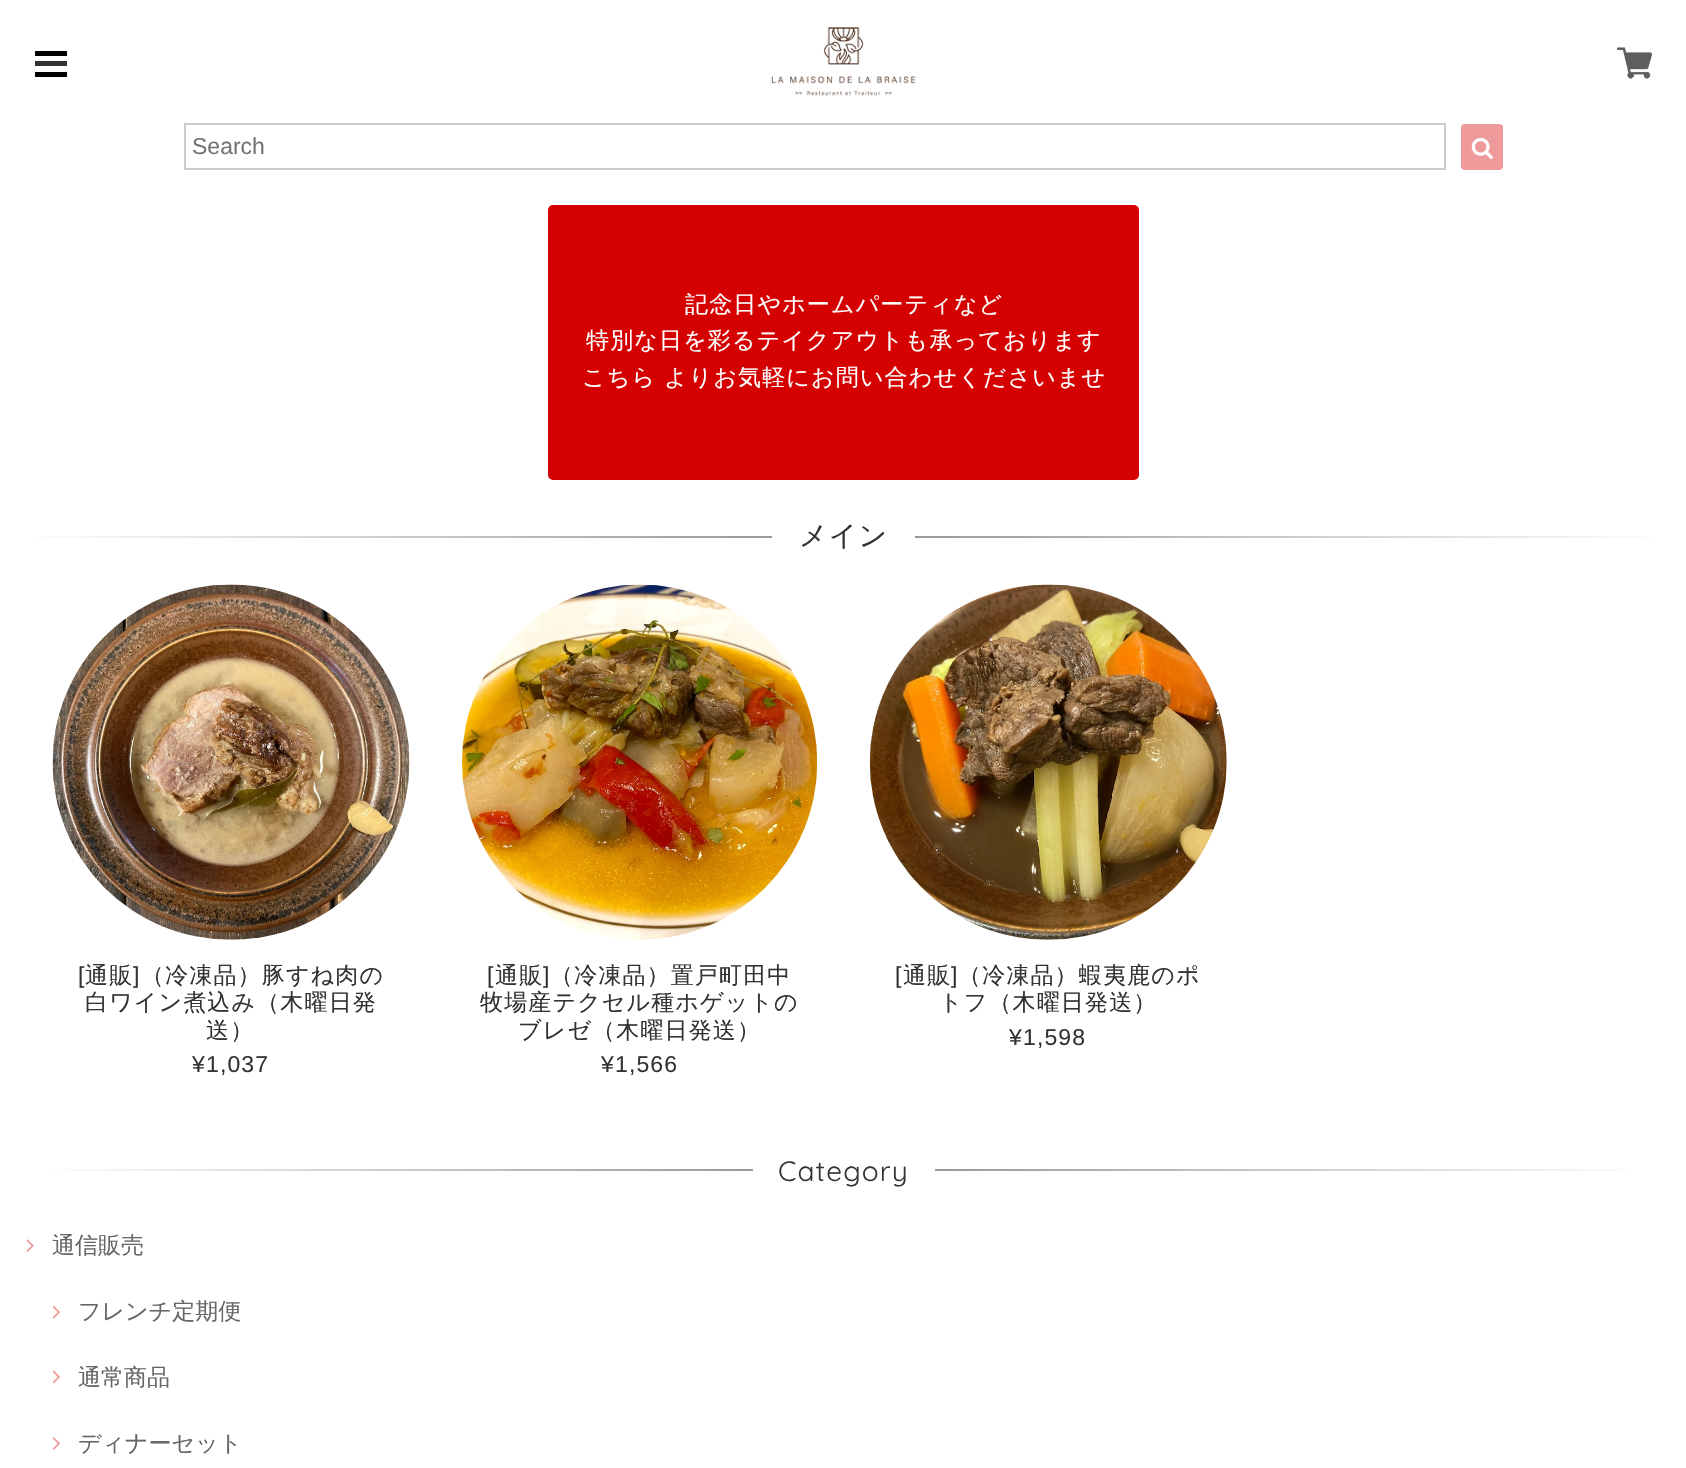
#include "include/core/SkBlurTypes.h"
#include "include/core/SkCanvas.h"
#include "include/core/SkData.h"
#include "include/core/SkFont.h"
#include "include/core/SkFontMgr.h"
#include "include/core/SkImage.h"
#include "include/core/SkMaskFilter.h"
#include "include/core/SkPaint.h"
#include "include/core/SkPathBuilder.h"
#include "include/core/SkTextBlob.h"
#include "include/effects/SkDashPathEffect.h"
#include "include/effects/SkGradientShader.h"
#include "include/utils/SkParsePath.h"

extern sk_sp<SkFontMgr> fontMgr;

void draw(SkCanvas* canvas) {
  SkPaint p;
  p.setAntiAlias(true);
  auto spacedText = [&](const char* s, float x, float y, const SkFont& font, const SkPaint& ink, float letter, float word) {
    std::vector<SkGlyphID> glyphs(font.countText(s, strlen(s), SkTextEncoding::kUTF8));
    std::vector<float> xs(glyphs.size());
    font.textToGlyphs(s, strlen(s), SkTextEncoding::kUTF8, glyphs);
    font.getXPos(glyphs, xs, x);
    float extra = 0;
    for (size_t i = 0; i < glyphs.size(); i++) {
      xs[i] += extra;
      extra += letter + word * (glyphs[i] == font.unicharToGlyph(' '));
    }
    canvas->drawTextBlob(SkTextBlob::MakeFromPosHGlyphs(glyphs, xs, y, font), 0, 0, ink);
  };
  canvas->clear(SK_ColorWHITE);
  p.setColor(SkColorSetRGB(51, 51, 51));
  canvas->drawRect(SkRect::MakeLTRB(35, 61, 67, 66), p);
  p.setColor(SK_ColorBLACK);
  canvas->drawRect(SkRect::MakeLTRB(35, 51, 67, 56), p);
  canvas->drawRect(SkRect::MakeLTRB(35, 72, 67, 77), p);
  canvas->drawImageRect(SkImages::DeferredFromEncodedData(SkData::MakeFromFileName("images/1.png")), SkRect::MakeLTRB(771, 27, 916, 96), SkSamplingOptions());
  canvas->drawImageRect(SkImages::DeferredFromEncodedData(SkData::MakeFromFileName("images/2.png")), SkRect::MakeLTRB(1617, 47, 1652, 79), SkSamplingOptions());
  p.setStyle(SkPaint::kStroke_Style);
  p.setStrokeWidth(2);
  p.setColor(SkColorSetRGB(204, 204, 204));
  canvas->drawRect(SkRect::MakeLTRB(185, 124, 1445, 169), p);
  p.setStyle(SkPaint::kFill_Style);
  p.setColor(SkColorSetRGB(239, 154, 154));
  canvas->drawRoundRect(SkRect::MakeLTRB(1461, 124, 1503, 170), 4, 4, p);
  canvas->drawImageRect(SkImages::DeferredFromEncodedData(SkData::MakeFromFileName("images/3.png")), SkRect::MakeLTRB(1471, 137, 1493, 159), SkSamplingOptions());
  p.setColor(SkColorSetRGB(213, 0, 0));
  canvas->drawRoundRect(SkRect::MakeLTRB(548, 205, 1139, 480), 5, 5, p);
  {
    const SkColor colors[] = {SkColorSetRGB(153, 153, 153), SK_ColorWHITE};
    const float stops[] = {0, 1};
    const SkPoint ends[] = {{772, 536}, {18, 536}};
    p.setShader(SkGradientShader::MakeLinear(ends, colors, stops, 2, SkTileMode::kClamp));
    p.setAlpha(255);
  }
  canvas->drawRect(SkRect::MakeLTRB(36, 536, 772, 538), p);
  {
    const SkColor colors[] = {SkColorSetRGB(153, 153, 153), SK_ColorWHITE};
    const float stops[] = {0, 1};
    const SkPoint ends[] = {{915, 536}, {1670, 536}};
    p.setShader(SkGradientShader::MakeLinear(ends, colors, stops, 2, SkTileMode::kClamp));
    p.setAlpha(255);
  }
  canvas->drawRect(SkRect::MakeLTRB(915, 536, 1652, 538), p);
  canvas->drawImageRect(SkImages::DeferredFromEncodedData(SkData::MakeFromFileName("images/4.png")), SkRect::MakeLTRB(52, 584, 410, 940), SkSamplingOptions());
  canvas->drawImageRect(SkImages::DeferredFromEncodedData(SkData::MakeFromFileName("images/5.png")), SkRect::MakeLTRB(462, 584, 818, 940), SkSamplingOptions());
  canvas->drawImageRect(SkImages::DeferredFromEncodedData(SkData::MakeFromFileName("images/6.png")), SkRect::MakeLTRB(869, 584, 1227, 940), SkSamplingOptions());
  {
    const SkColor colors[] = {SkColorSetRGB(153, 153, 153), SK_ColorWHITE};
    const float stops[] = {0, 1};
    const SkPoint ends[] = {{753, 1170}, {35, 1170}};
    p.setShader(SkGradientShader::MakeLinear(ends, colors, stops, 2, SkTileMode::kClamp));
    p.setAlpha(255);
  }
  canvas->drawRect(SkRect::MakeLTRB(53, 1169, 753, 1171), p);
  {
    const SkColor colors[] = {SkColorSetRGB(153, 153, 153), SK_ColorWHITE};
    const float stops[] = {0, 1};
    const SkPoint ends[] = {{935, 1170}, {1652, 1170}};
    p.setShader(SkGradientShader::MakeLinear(ends, colors, stops, 2, SkTileMode::kClamp));
    p.setAlpha(255);
  }
  canvas->drawRect(SkRect::MakeLTRB(935, 1169, 1634, 1171), p);
  canvas->drawImageRect(SkImages::DeferredFromEncodedData(SkData::MakeFromFileName("images/7.png")), SkRect::MakeLTRB(26, 1239, 34, 1252), SkSamplingOptions());
  canvas->drawImageRect(SkImages::DeferredFromEncodedData(SkData::MakeFromFileName("images/8.png")), SkRect::MakeLTRB(52, 1305, 60, 1319), SkSamplingOptions());
  canvas->drawImageRect(SkImages::DeferredFromEncodedData(SkData::MakeFromFileName("images/9.png")), SkRect::MakeLTRB(52, 1370, 60, 1384), SkSamplingOptions());
  canvas->drawImageRect(SkImages::DeferredFromEncodedData(SkData::MakeFromFileName("images/10.png")), SkRect::MakeLTRB(52, 1437, 60, 1450), SkSamplingOptions());
  SkFont font1(fontMgr->matchFamilyStyle("Liberation Sans", SkFontStyle::Normal()), 23);
  font1.setSubpixel(true);
  p.setShader(nullptr);
  p.setColor(SkColorSetRGB(117, 117, 117));
  canvas->drawString("Search", 192, 154, font1, p);
  SkFont font2(fontMgr->matchFamilyStyle("WenQuanYi Zen Hei", SkFontStyle(500, SkFontStyle::kNormal_Width, SkFontStyle::kUpright_Slant)), 23);
  font2.setSubpixel(true);
  p.setColor(SK_ColorWHITE);
  spacedText("記念日やホームパーティなど", 685, 312, font2, p, 1.15f, 0);
  spacedText("特別な日を彩るテイクアウトも承っております", 586, 348, font2, p, 1.15f, 0);
  spacedText("こちら", 582, 385, font2, p, 1.15f, 0);
  spacedText("よりお気軽にお問い合わせくださいませ", 664, 385, font2, p, 1.15f, 0);
  SkFont font3(fontMgr->matchFamilyStyle("WenQuanYi Zen Hei", SkFontStyle(500, SkFontStyle::kNormal_Width, SkFontStyle::kUpright_Slant)), 28);
  font3.setSubpixel(true);
  p.setColor(SkColorSetRGB(51, 51, 51));
  spacedText("メイン", 799, 545, font3, p, 1.15f, 0);
  spacedText("[", 78, 983, font1, p, 1.15f, 0);
  spacedText("通販", 85, 983, font2, p, 1.15f, 0);
  spacedText("]", 133, 983, font1, p, 1.15f, 0);
  spacedText("（冷凍品）豚すね肉の", 141, 983, font2, p, 1.15f, 0);
  spacedText("白ワイン煮込み（木曜日発", 85, 1010, font2, p, 1.15f, 0);
  spacedText("送）", 206, 1038, font2, p, 1.15f, 0);
  spacedText("¥1,037", 192, 1072, font1, p, 1.15f, 0);
  spacedText("[", 487, 983, font1, p, 1.15f, 0);
  spacedText("通販", 495, 983, font2, p, 1.15f, 0);
  spacedText("]", 543, 983, font1, p, 1.15f, 0);
  spacedText("（冷凍品）置戸町田中", 550, 983, font2, p, 1.15f, 0);
  spacedText("牧場産テクセル種ホゲットの", 480, 1010, font2, p, 1.15f, 0);
  spacedText("ブレゼ（木曜日発送）", 518, 1038, font2, p, 1.15f, 0);
  spacedText("¥1,566", 601, 1072, font1, p, 1.15f, 0);
  spacedText("[", 895, 983, font1, p, 1.15f, 0);
  spacedText("通販", 903, 983, font2, p, 1.15f, 0);
  spacedText("]", 951, 983, font1, p, 1.15f, 0);
  spacedText("（冷凍品）蝦夷鹿のポ", 958, 983, font2, p, 1.15f, 0);
  spacedText("トフ（木曜日発送）", 939, 1010, font2, p, 1.15f, 0);
  spacedText("¥1,598", 1009, 1045, font1, p, 1.15f, 0);
  SkFont font4(fontMgr->matchFamilyStyle("Quicksand", SkFontStyle(300, SkFontStyle::kNormal_Width, SkFontStyle::kUpright_Slant)), 28);
  font4.setSubpixel(true);
  spacedText("Category", 778, 1181, font4, p, 1.15f, 0);
  p.setColor(SkColorSetRGB(102, 102, 102));
  canvas->drawString("通信販売", 52, 1253, font2, p);
  canvas->drawString("フレンチ定期便", 78, 1319, font2, p);
  canvas->drawString("通常商品", 78, 1385, font2, p);
  canvas->drawString("ディナーセット", 78, 1451, font2, p);
}
